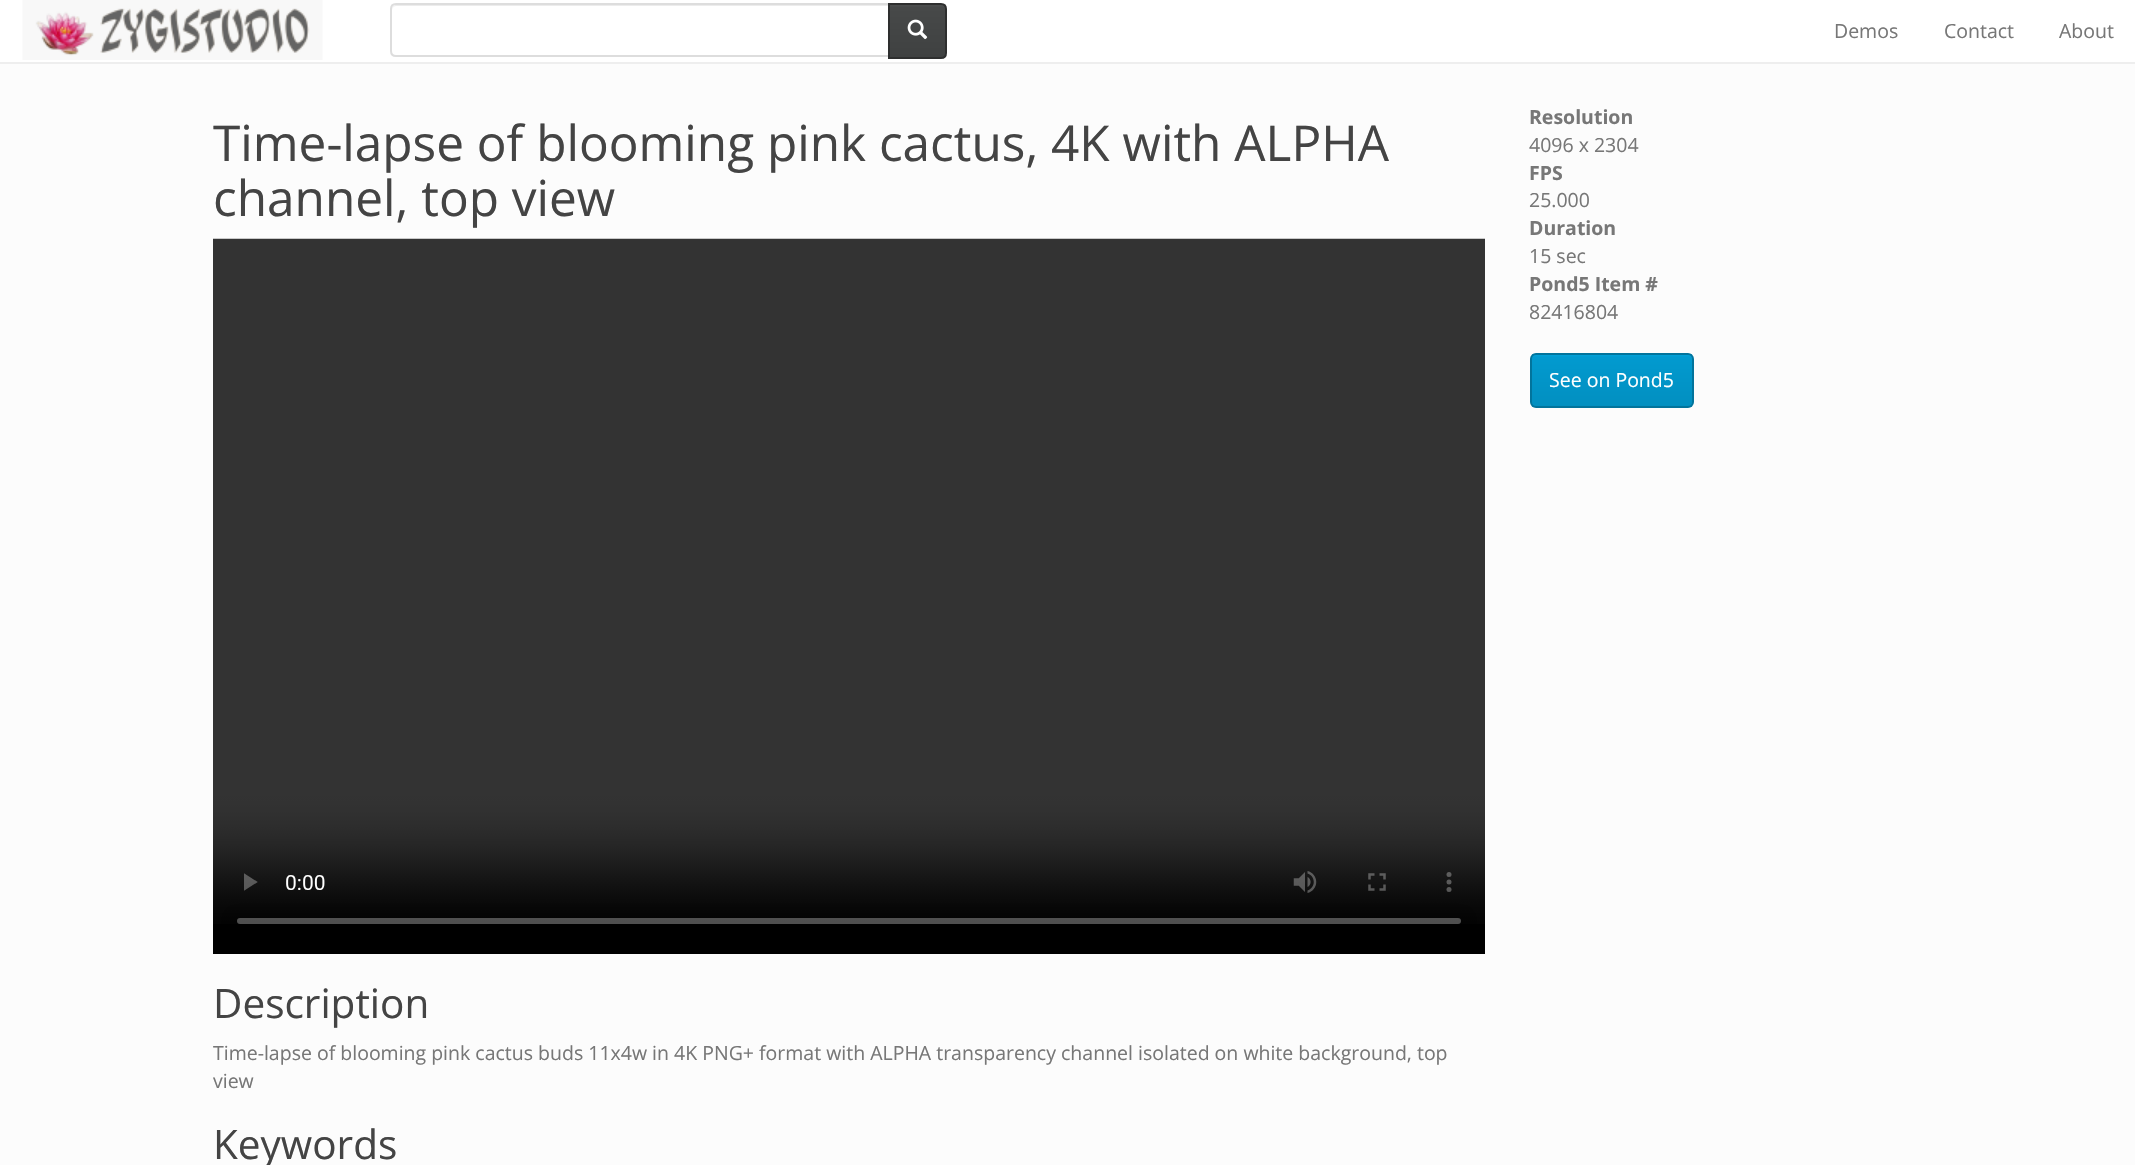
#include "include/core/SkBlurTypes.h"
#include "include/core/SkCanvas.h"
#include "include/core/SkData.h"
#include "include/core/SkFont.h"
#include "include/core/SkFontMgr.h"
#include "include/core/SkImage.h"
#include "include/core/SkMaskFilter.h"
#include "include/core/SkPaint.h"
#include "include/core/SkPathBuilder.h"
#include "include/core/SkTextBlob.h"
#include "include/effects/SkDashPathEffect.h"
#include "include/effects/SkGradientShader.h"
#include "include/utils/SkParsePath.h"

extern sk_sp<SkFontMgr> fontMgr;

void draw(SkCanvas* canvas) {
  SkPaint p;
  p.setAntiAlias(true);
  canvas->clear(SkColorSetRGB(252, 252, 252));
  p.setColor(SK_ColorWHITE);
  canvas->drawRect(SkRect::MakeLTRB(0, 0, 2135, 62), p);
  p.setColor(SkColorSetRGB(238, 238, 238));
  canvas->drawRect(SkRect::MakeLTRB(0, 62, 2135, 64), p);
  canvas->drawImageRect(SkImages::DeferredFromEncodedData(SkData::MakeFromFileName("images/1.png")), SkRect::MakeLTRB(22, 0, 323, 60), SkSamplingOptions());
  p.setColor(SkColorSetRGB(236, 236, 236));
  canvas->drawPath(SkPathBuilder().moveTo(396, 6).lineTo(888, 6).lineTo(888, 5).lineTo(397, 5).cubicTo(394, 5, 392, 7, 392, 10).cubicTo(392, 8, 394, 6, 396, 6).close().detach(), p);
  p.setStyle(SkPaint::kStroke_Style);
  p.setStrokeWidth(2);
  p.setColor(SkColorSetRGB(221, 221, 221));
  canvas->drawPath(SkPathBuilder().moveTo(396, 4).lineTo(889, 4).lineTo(889, 56).lineTo(396, 56).cubicTo(393, 56, 391, 54, 391, 51).lineTo(391, 9).cubicTo(391, 6, 393, 4, 396, 4).close().detach(), p);
  p.setStyle(SkPaint::kFill_Style);
  {
    const SkColor colors[] = {SkColorSetRGB(79, 81, 81), SkColorSetRGB(71, 73, 73), SkColorSetRGB(63, 65, 65)};
    const float stops[] = {0, 0.06f, 1};
    const SkPoint ends[] = {{917, 4.5f}, {917, 57}};
    p.setShader(SkGradientShader::MakeLinear(ends, colors, stops, 3, SkTileMode::kClamp));
    p.setAlpha(255);
  }
  canvas->drawRect(SkRect::MakeLTRB(890, 5, 945, 57), p);
  p.setStyle(SkPaint::kStroke_Style);
  p.setShader(nullptr);
  p.setColor(SkColorSetRGB(46, 47, 47));
  canvas->drawPath(SkPathBuilder().moveTo(889, 4).lineTo(941, 4).cubicTo(944, 4, 946, 6, 946, 9).lineTo(946, 53).cubicTo(946, 56, 944, 58, 941, 58).lineTo(889, 58).close().detach(), p);
  canvas->drawImageRect(SkImages::DeferredFromEncodedData(SkData::MakeFromFileName("images/2.png")), SkRect::MakeLTRB(907, 19, 928, 40), SkSamplingOptions());
  p.setStyle(SkPaint::kFill_Style);
  p.setColor(SK_ColorBLACK);
  canvas->drawRect(SkRect::MakeLTRB(213, 924, 1485, 954), p);
  canvas->drawImageRect(SkImages::DeferredFromEncodedData(SkData::MakeFromFileName("images/3.png")), SkRect::MakeLTRB(213, 238, 1485, 924), SkSamplingOptions());
  canvas->save();
  canvas->clipPath(SkPathBuilder().moveTo(1536, 353).lineTo(1688, 353).cubicTo(1691.5f, 353, 1694, 355.5f, 1694, 359).lineTo(1694, 402).cubicTo(1694, 405.5f, 1691.5f, 408, 1688, 408).lineTo(1536, 408).cubicTo(1532.5f, 408, 1530, 405.5f, 1530, 402).lineTo(1530, 359).cubicTo(1530, 355.5f, 1532.5f, 353, 1536, 353).close().detach(), true);
  {
    const SkColor colors[] = {SkColorSetRGB(2, 165, 222), SkColorSetRGB(2, 154, 207), SkColorSetRGB(2, 143, 192)};
    const float stops[] = {0, 0.06f, 1};
    const SkPoint ends[] = {{1612, 354}, {1612, 407}};
    p.setShader(SkGradientShader::MakeLinear(ends, colors, stops, 3, SkTileMode::kClamp));
    p.setAlpha(255);
  }
  canvas->drawRect(SkRect::MakeLTRB(1532, 354, 1692, 407), p);
  canvas->restore();
  p.setStyle(SkPaint::kStroke_Style);
  p.setShader(nullptr);
  p.setColor(SkColorSetRGB(2, 116, 156));
  canvas->drawRoundRect(SkRect::MakeLTRB(1531, 354, 1693, 407), 5, 5, p);
  SkFont font1(fontMgr->matchFamilyStyle("Open Sans", SkFontStyle::Normal()), 19.5f);
  font1.setSubpixel(true);
  p.setStyle(SkPaint::kFill_Style);
  p.setColor(SkColorSetRGB(119, 119, 119));
  canvas->drawString("Demos", 1834, 38, font1, p);
  canvas->drawString("Contact", 1944, 38, font1, p);
  canvas->drawString("About", 2059, 38, font1, p);
  SkFont font2(fontMgr->matchFamilyStyle("Open Sans", SkFontStyle::Normal()), 49.5f);
  font2.setSubpixel(true);
  p.setColor(SkColorSetRGB(68, 68, 68));
  canvas->drawString("Time-lapse of blooming pink cactus, 4K with ALPHA", 213, 161, font2, p);
  canvas->drawString("channel, top view", 213, 216, font2, p);
  SkFont font3(fontMgr->matchFamilyStyle("Open Sans", SkFontStyle::Normal()), 40.5f);
  font3.setSubpixel(true);
  canvas->drawString("Description", 213, 1018, font3, p);
  p.setColor(SkColorSetRGB(119, 119, 119));
  canvas->drawString("Time-lapse of blooming pink cactus buds 11x4w in 4K PNG+ format with ALPHA transparency channel isolated on white background, top", 213, 1060, font1, p);
  canvas->drawString("view", 213, 1088, font1, p);
  p.setColor(SkColorSetRGB(68, 68, 68));
  canvas->drawString("Keywords", 213, 1159, font3, p);
  SkFont font4(fontMgr->matchFamilyStyle("Open Sans", SkFontStyle::Bold()), 19.5f);
  font4.setSubpixel(true);
  p.setColor(SkColorSetRGB(119, 119, 119));
  canvas->drawString("Resolution", 1529, 124, font4, p);
  canvas->drawString("4096 x 2304", 1529, 152, font1, p);
  canvas->drawString("FPS", 1529, 180, font4, p);
  canvas->drawString("25.000", 1529, 207, font1, p);
  canvas->drawString("Duration", 1529, 235, font4, p);
  canvas->drawString("15 sec", 1529, 263, font1, p);
  canvas->drawString("Pond5 Item #", 1529, 291, font4, p);
  canvas->drawString("82416804", 1529, 319, font1, p);
  p.setColor(SK_ColorWHITE);
  canvas->drawString("See on Pond5", 1549, 387, font1, p);
}
